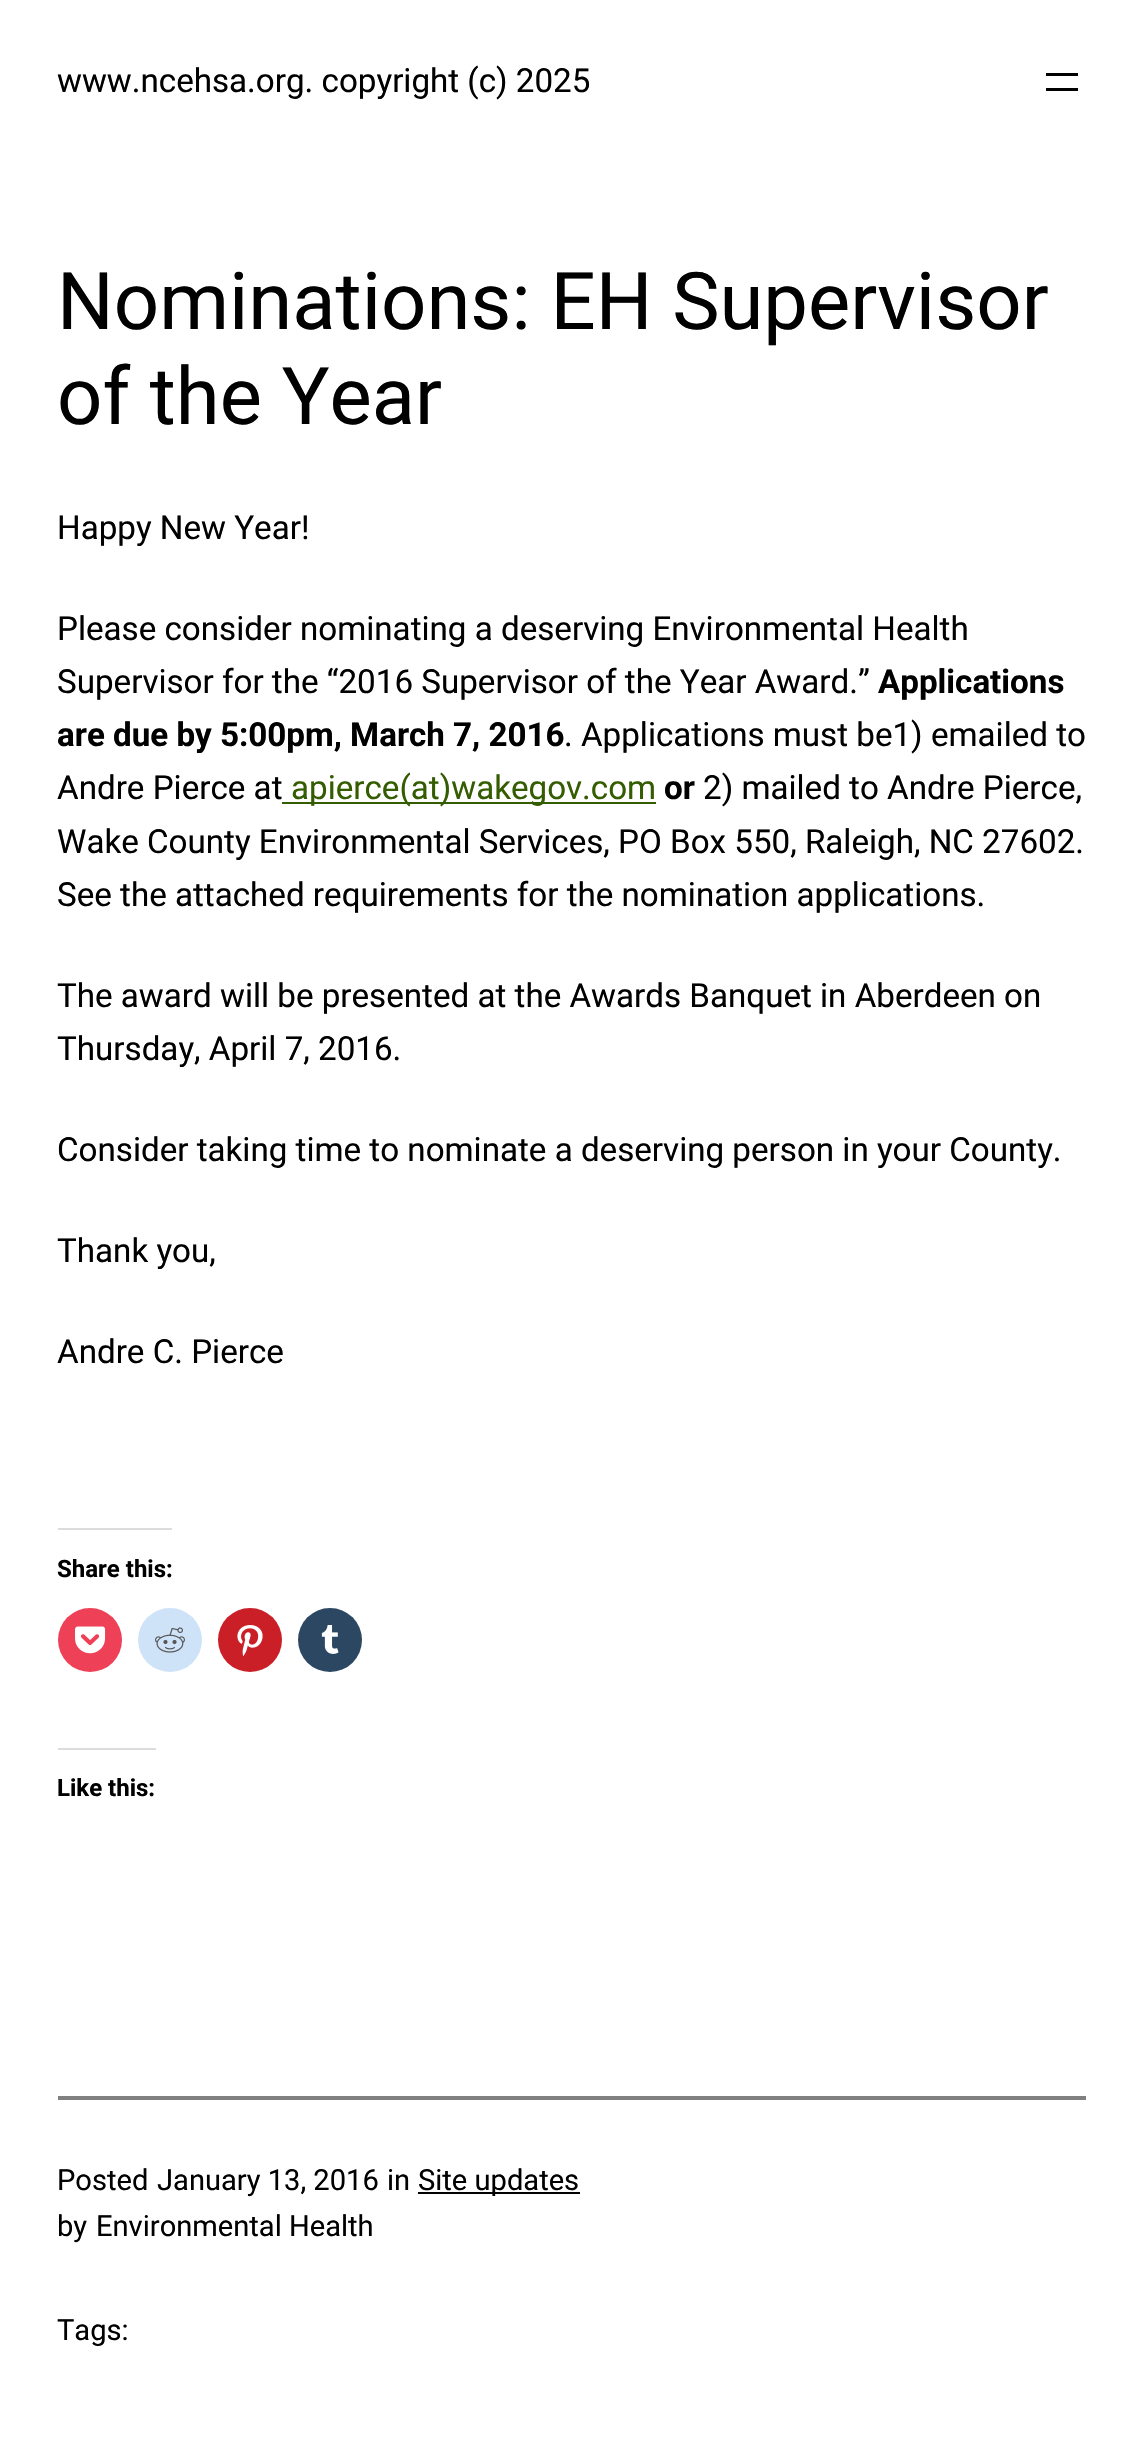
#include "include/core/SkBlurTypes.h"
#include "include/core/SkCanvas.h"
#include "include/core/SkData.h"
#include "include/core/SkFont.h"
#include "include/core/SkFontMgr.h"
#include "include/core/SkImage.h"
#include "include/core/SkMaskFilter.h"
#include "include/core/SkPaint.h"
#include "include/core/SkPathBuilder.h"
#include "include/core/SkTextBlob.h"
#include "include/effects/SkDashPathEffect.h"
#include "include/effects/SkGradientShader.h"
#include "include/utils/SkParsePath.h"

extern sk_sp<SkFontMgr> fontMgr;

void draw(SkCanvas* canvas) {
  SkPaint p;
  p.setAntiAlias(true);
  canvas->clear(SK_ColorWHITE);
  p.setColor(SK_ColorBLACK);
  canvas->drawRect(SkRect::MakeLTRB(1046, 73, 1078, 76), p);
  canvas->drawRect(SkRect::MakeLTRB(1046, 88, 1078, 91), p);
  p.setColor(SkColorSetRGB(52, 92, 0));
  canvas->drawRect(SkRect::MakeLTRB(282, 802, 656, 804), p);
  p.setColor(SkColorSetRGB(220, 220, 222));
  canvas->drawRect(SkRect::MakeLTRB(58, 1528, 172, 1530), p);
  p.setColor(SkColorSetRGB(238, 64, 86));
  canvas->drawCircle(90, 1640, 32, p);
  canvas->drawImageRect(SkImages::DeferredFromEncodedData(SkData::MakeFromFileName("images/1.png")), SkRect::MakeLTRB(75, 1626, 106, 1654), SkSamplingOptions());
  p.setColor(SkColorSetRGB(206, 227, 248));
  canvas->drawCircle(170, 1640, 32, p);
  canvas->drawImageRect(SkImages::DeferredFromEncodedData(SkData::MakeFromFileName("images/2.png")), SkRect::MakeLTRB(155, 1627, 185, 1653), SkSamplingOptions());
  p.setColor(SkColorSetRGB(202, 31, 39));
  canvas->drawCircle(250, 1640, 32, p);
  canvas->drawImageRect(SkImages::DeferredFromEncodedData(SkData::MakeFromFileName("images/3.png")), SkRect::MakeLTRB(237, 1625, 263, 1657), SkSamplingOptions());
  p.setColor(SkColorSetRGB(44, 71, 98));
  canvas->drawCircle(330, 1640, 32, p);
  canvas->drawImageRect(SkImages::DeferredFromEncodedData(SkData::MakeFromFileName("images/4.png")), SkRect::MakeLTRB(321, 1625, 339, 1654), SkSamplingOptions());
  p.setColor(SkColorSetRGB(220, 220, 222));
  canvas->drawRect(SkRect::MakeLTRB(58, 1748, 156, 1750), p);
  p.setColor(SkColorSetRGB(128, 128, 128));
  canvas->drawRect(SkRect::MakeLTRB(58, 2096, 1086, 2100), p);
  p.setColor(SK_ColorBLACK);
  canvas->drawRect(SkRect::MakeLTRB(418, 2192, 580, 2194), p);
  SkFont font1(fontMgr->matchFamilyStyle("Roboto", SkFontStyle::Normal()), 33.15f);
  font1.setSubpixel(true);
  canvas->drawString("www.ncehsa.org. copyright (c) 2025", 57, 92, font1, p);
  SkFont font2(fontMgr->matchFamilyStyle("Roboto", SkFontStyle::Normal()), 79.6f);
  font2.setSubpixel(true);
  canvas->drawString("Nominations: EH Supervisor", 57, 329, font2, p);
  canvas->drawString("of the Year", 57, 424, font2, p);
  canvas->drawString("Happy New Year!", 57, 539, font1, p);
  canvas->drawString("Please consider nominating a deserving Environmental Health", 57, 640, font1, p);
  canvas->drawString("Supervisor for the “2016 Supervisor of the Year Award.”", 57, 693, font1, p);
  SkFont font3(fontMgr->matchFamilyStyle("Roboto", SkFontStyle::Bold()), 33.15f);
  font3.setSubpixel(true);
  canvas->drawString("Applications", 878, 693, font3, p);
  canvas->drawString("are due by 5:00pm, March 7, 2016", 57, 746, font3, p);
  canvas->drawString(". Applications must be1) emailed to", 564, 746, font1, p);
  canvas->drawString("Andre Pierce at", 57, 799, font1, p);
  p.setColor(SkColorSetRGB(52, 92, 0));
  canvas->drawString("apierce(at)wakegov.com", 291, 799, font1, p);
  p.setColor(SK_ColorBLACK);
  canvas->drawString("or", 664, 799, font3, p);
  canvas->drawString("2) mailed to Andre Pierce,", 703, 799, font1, p);
  canvas->drawString("Wake County Environmental Services, PO Box 550, Raleigh, NC 27602.", 57, 853, font1, p);
  canvas->drawString("See the attached requirements for the nomination applications.", 57, 906, font1, p);
  canvas->drawString("The award will be presented at the Awards Banquet in Aberdeen on", 57, 1007, font1, p);
  canvas->drawString("Thursday, April 7, 2016.", 57, 1060, font1, p);
  canvas->drawString("Consider taking time to nominate a deserving person in your County.", 57, 1161, font1, p);
  canvas->drawString("Thank you,", 57, 1262, font1, p);
  canvas->drawString("Andre C. Pierce", 57, 1363, font1, p);
  SkFont font4(fontMgr->matchFamilyStyle("Roboto", SkFontStyle::Bold()), 24);
  font4.setSubpixel(true);
  canvas->drawString("Share this:", 57, 1577, font4, p);
  canvas->drawString("Like this:", 57, 1796, font4, p);
  SkFont font5(fontMgr->matchFamilyStyle("Roboto", SkFontStyle::Normal()), 29.1f);
  font5.setSubpixel(true);
  canvas->drawString("Posted", 57, 2190, font5, p);
  canvas->drawString("January 13, 2016", 157, 2190, font5, p);
  canvas->drawString("in", 387, 2190, font5, p);
  canvas->drawString("Site updates", 418, 2190, font5, p);
  canvas->drawString("by", 57, 2236, font5, p);
  canvas->drawString("Environmental Health", 96, 2236, font5, p);
  canvas->drawString("Tags:", 57, 2340, font5, p);
}
